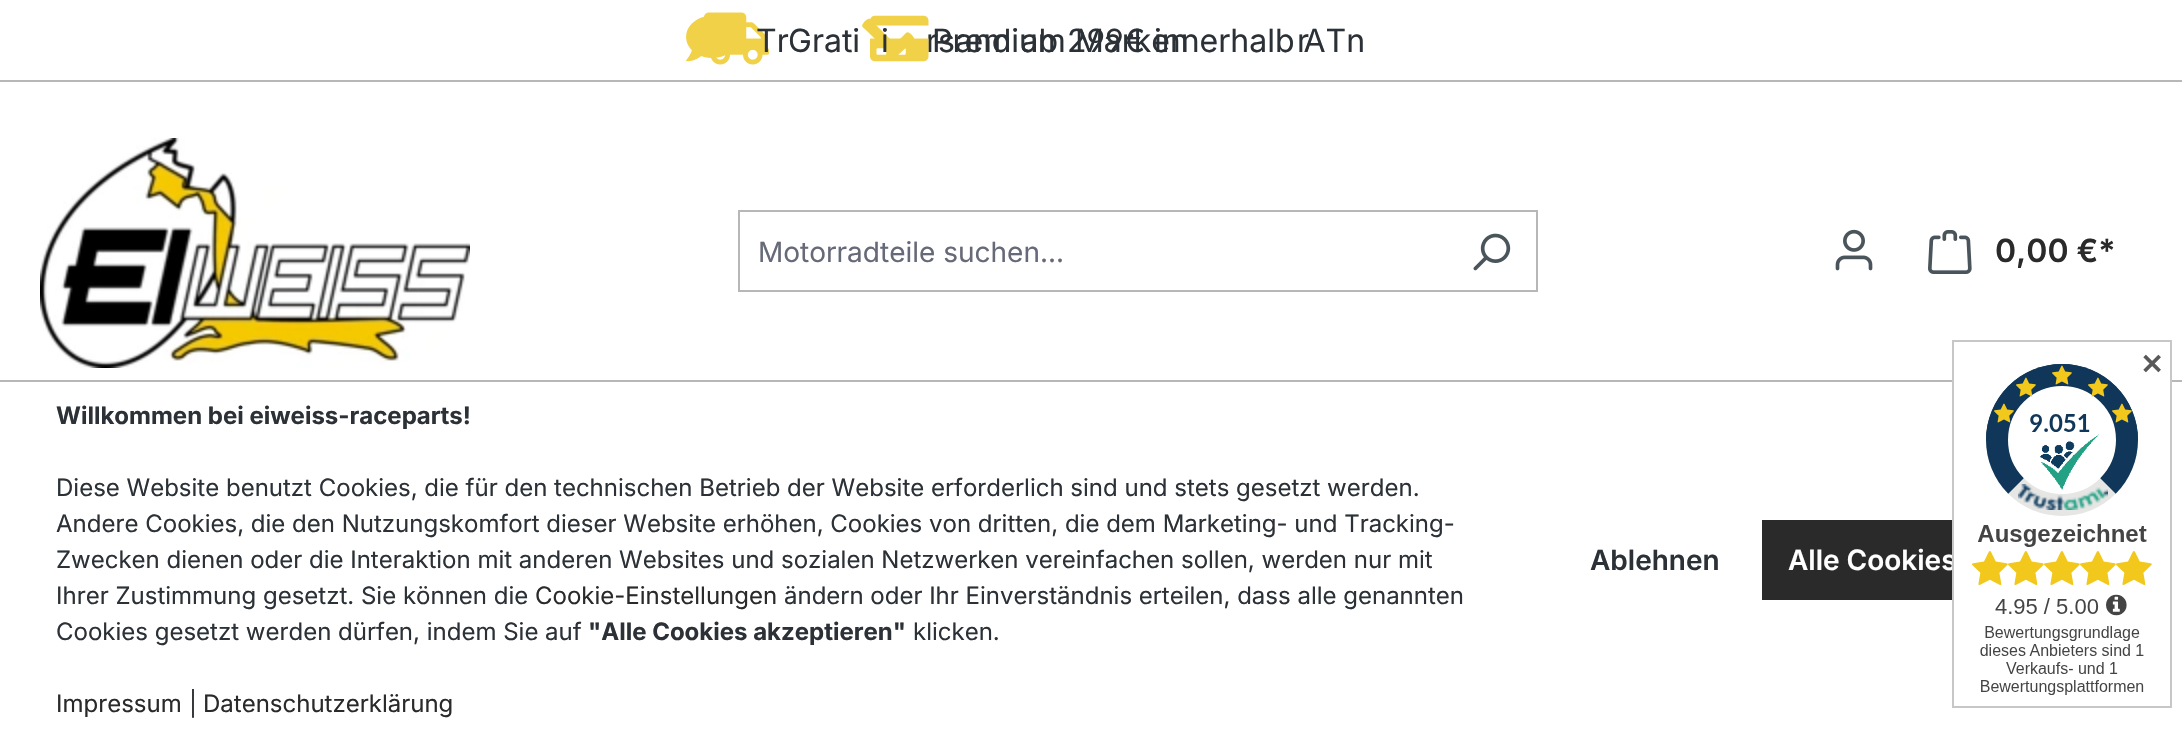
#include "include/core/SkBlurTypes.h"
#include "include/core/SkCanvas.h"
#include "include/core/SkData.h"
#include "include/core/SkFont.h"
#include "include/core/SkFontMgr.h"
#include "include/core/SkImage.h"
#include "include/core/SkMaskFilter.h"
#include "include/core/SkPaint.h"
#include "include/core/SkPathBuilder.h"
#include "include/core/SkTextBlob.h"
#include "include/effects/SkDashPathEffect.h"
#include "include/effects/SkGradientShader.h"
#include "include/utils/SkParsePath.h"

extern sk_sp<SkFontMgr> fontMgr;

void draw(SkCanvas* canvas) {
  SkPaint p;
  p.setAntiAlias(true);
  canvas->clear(SK_ColorWHITE);
  p.setColor(SkColorSetRGB(183, 183, 183));
  canvas->drawRect(SkRect::MakeLTRB(0, 80, 2182, 82), p);
  canvas->drawImageRect(SkImages::DeferredFromEncodedData(SkData::MakeFromFileName("images/3.png")), SkRect::MakeLTRB(704, 12, 769, 65), SkSamplingOptions());
  canvas->drawImageRect(SkImages::DeferredFromEncodedData(SkData::MakeFromFileName("images/2.png")), SkRect::MakeLTRB(686, 16, 726, 62), SkSamplingOptions());
  p.setColor(SkColorSetRGB(241, 209, 71));
  canvas->drawPath(SkPathBuilder().moveTo(896, 57).lineTo(914, 40).cubicTo(915, 38, 913, 37, 912, 35).cubicTo(908, 32, 908, 31, 904, 35).lineTo(895, 44).lineTo(870, 19).cubicTo(868, 18, 867, 20, 865, 21).cubicTo(860, 27, 862, 26, 868, 32).lineTo(888, 52).cubicTo(888, 53, 894, 60, 896, 57).close().detach(), p);
  canvas->drawImageRect(SkImages::DeferredFromEncodedData(SkData::MakeFromFileName("images/4.png")), SkRect::MakeLTRB(40, 138, 470, 368), SkSamplingOptions());
  p.setColor(SkColorSetRGB(183, 183, 183));
  canvas->drawRect(SkRect::MakeLTRB(738, 210, 1538, 212), p);
  canvas->drawRect(SkRect::MakeLTRB(738, 290, 1446, 292), p);
  canvas->drawRect(SkRect::MakeLTRB(738, 210, 740, 292), p);
  canvas->drawRect(SkRect::MakeLTRB(1536, 210, 1538, 292), p);
  canvas->drawRect(SkRect::MakeLTRB(1444, 290, 1538, 292), p);
  canvas->drawImageRect(SkImages::DeferredFromEncodedData(SkData::MakeFromFileName("images/5.png")), SkRect::MakeLTRB(1473, 233, 1511, 271), SkSamplingOptions());
  canvas->drawImageRect(SkImages::DeferredFromEncodedData(SkData::MakeFromFileName("images/6.png")), SkRect::MakeLTRB(1835, 229, 1873, 271), SkSamplingOptions());
  canvas->drawImageRect(SkImages::DeferredFromEncodedData(SkData::MakeFromFileName("images/7.png")), SkRect::MakeLTRB(1928, 230, 1972, 274), SkSamplingOptions());
  canvas->drawRect(SkRect::MakeLTRB(0, 380, 2182, 382), p);
  p.setColor(SkColorSetRGB(42, 42, 42));
  canvas->drawRect(SkRect::MakeLTRB(1762, 520, 1952, 600), p);
  SkFont font1(fontMgr->matchFamilyStyle("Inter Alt", SkFontStyle::Normal()), 32);
  font1.setSubpixel(true);
  p.setColor(SkColorSetRGB(43, 49, 54));
  canvas->drawString("Tr", 756, 52, font1, p);
  canvas->drawString("Grati", 788, 52, font1, p);
  canvas->drawString("rsand ab 299€ innerhalb ATn", 926, 52, font1, p);
  canvas->drawImageRect(SkImages::DeferredFromEncodedData(SkData::MakeFromFileName("images/1.png")), SkRect::MakeLTRB(870, 15, 929, 62), SkSamplingOptions());
  canvas->drawString("i", 881, 52, font1, p);
  canvas->drawString("r", 1297, 52, font1, p);
  SkFont font2(fontMgr->matchFamilyStyle("Inter", SkFontStyle::Normal()), 32);
  font2.setSubpixel(true);
  canvas->drawString("Premium Marken", 932, 52, font2, p);
  SkFont font3(fontMgr->matchFamilyStyle("Inter", SkFontStyle::Normal()), 28);
  font3.setSubpixel(true);
  p.setColor(SkColorSetRGB(102, 105, 119));
  canvas->drawString("Motorradteile suchen...", 758, 262, font3, p);
  SkFont font4(fontMgr->matchFamilyStyle("Inter", SkFontStyle(600, SkFontStyle::kNormal_Width, SkFontStyle::kUpright_Slant)), 32);
  font4.setSubpixel(true);
  p.setColor(SkColorSetRGB(42, 42, 42));
  canvas->drawString("0,00 €*", 1995, 262, font4, p);
  SkFont font5(fontMgr->matchFamilyStyle("Inter", SkFontStyle::Bold()), 24);
  font5.setSubpixel(true);
  p.setColor(SkColorSetRGB(43, 49, 54));
  canvas->drawString("Willkommen bei eiweiss-raceparts!", 56, 424, font5, p);
  SkFont font6(fontMgr->matchFamilyStyle("Inter", SkFontStyle::Normal()), 24);
  font6.setSubpixel(true);
  canvas->drawString("Diese Website benutzt Cookies, die für den technischen Betrieb der Website erforderlich sind und stets gesetzt werden.", 56, 496, font6, p);
  canvas->drawString("Andere Cookies, die den Nutzungskomfort dieser Website erhöhen, Cookies von dritten, die dem Marketing- und Tracking-", 56, 532, font6, p);
  canvas->drawString("Zwecken dienen oder die Interaktion mit anderen Websites und sozialen Netzwerken vereinfachen sollen, werden nur mit", 56, 568, font6, p);
  canvas->drawString("Ihrer Zustimmung gesetzt. Sie können die", 56, 604, font6, p);
  p.setColor(SkColorSetRGB(42, 42, 42));
  canvas->drawString("Cookie-Einstellungen", 535, 604, font6, p);
  p.setColor(SkColorSetRGB(43, 49, 54));
  canvas->drawString("ändern oder Ihr Einverständnis erteilen, dass alle genannten", 784, 604, font6, p);
  canvas->drawString("Cookies gesetzt werden dürfen, indem Sie auf", 56, 640, font6, p);
  canvas->drawString("\"Alle Cookies akzeptieren\"", 588, 640, font5, p);
  canvas->drawString("klicken.", 913, 640, font6, p);
  p.setColor(SkColorSetRGB(42, 42, 42));
  canvas->drawString("Impressum", 56, 712, font6, p);
  p.setColor(SkColorSetRGB(43, 49, 54));
  canvas->drawString("|", 189, 712, font6, p);
  p.setColor(SkColorSetRGB(42, 42, 42));
  canvas->drawString("Datenschutzerklärung", 203, 712, font6, p);
  SkFont font7(fontMgr->matchFamilyStyle("Inter", SkFontStyle(600, SkFontStyle::kNormal_Width, SkFontStyle::kUpright_Slant)), 28);
  font7.setSubpixel(true);
  p.setColor(SkColorSetRGB(43, 49, 54));
  canvas->drawString("Ablehnen", 1590, 570, font7, p);
  p.setColor(SK_ColorWHITE);
  canvas->drawString("Alle Cookies", 1788, 570, font7, p);
  canvas->drawImageRect(SkImages::DeferredFromEncodedData(SkData::MakeFromFileName("images/8.png")), SkRect::MakeLTRB(1952, 340, 2172, 708), SkSamplingOptions());
  SkFont font8(fontMgr->matchFamilyStyle("DejaVu Sans", SkFontStyle::Bold()), 28);
  font8.setSubpixel(true);
  p.setColor(SkColorSetRGB(89, 89, 89));
  canvas->drawString("✕", 2140, 374, font8, p);
}
